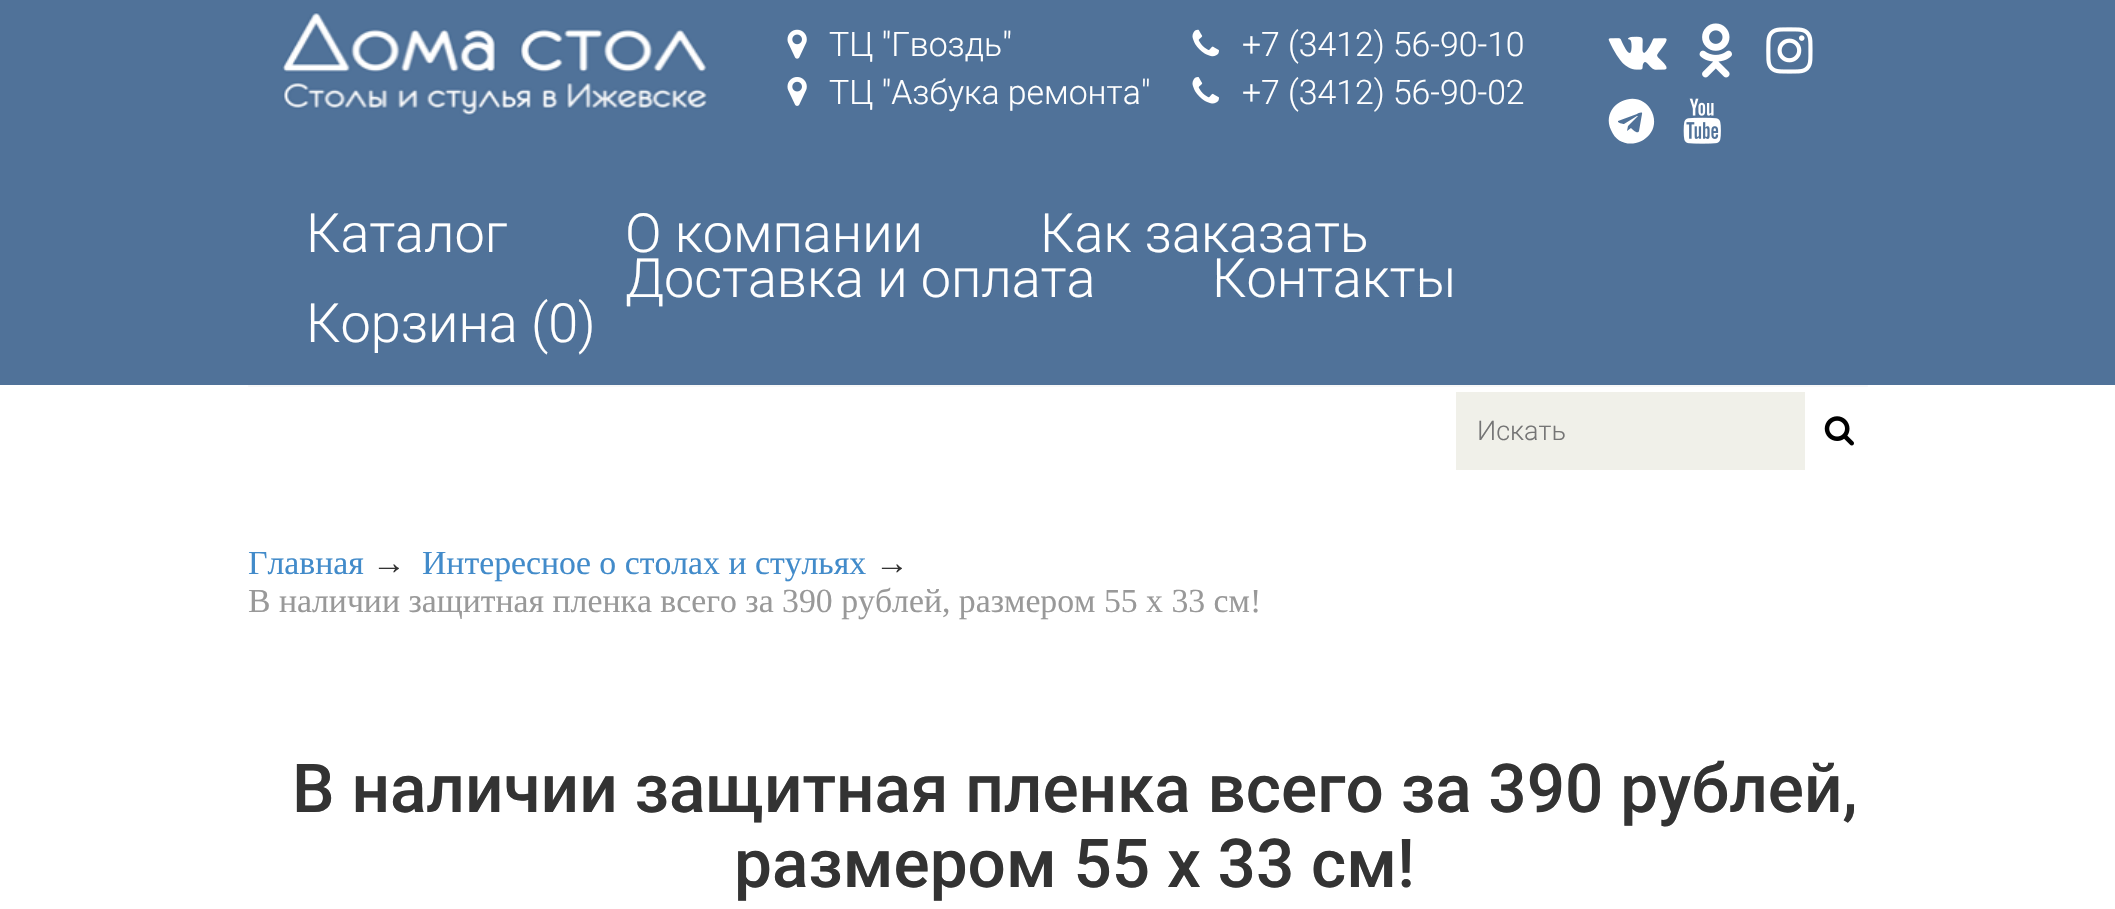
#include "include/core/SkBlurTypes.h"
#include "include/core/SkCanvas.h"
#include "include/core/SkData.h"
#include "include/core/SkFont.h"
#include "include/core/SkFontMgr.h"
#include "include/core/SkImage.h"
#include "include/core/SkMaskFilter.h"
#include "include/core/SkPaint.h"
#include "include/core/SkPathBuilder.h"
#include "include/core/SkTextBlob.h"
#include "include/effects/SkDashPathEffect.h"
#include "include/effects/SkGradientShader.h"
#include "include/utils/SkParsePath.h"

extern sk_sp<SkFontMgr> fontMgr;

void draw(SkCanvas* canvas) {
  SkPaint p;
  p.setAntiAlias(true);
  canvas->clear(SK_ColorWHITE);
  p.setColor(SkColorSetRGB(80, 114, 153));
  canvas->drawRect(SkRect::MakeLTRB(0, 0, 2115, 385), p);
  canvas->drawImageRect(SkImages::DeferredFromEncodedData(SkData::MakeFromFileName("images/1.png")), SkRect::MakeLTRB(281, 12, 708, 116), SkSamplingOptions());
  canvas->drawImageRect(SkImages::DeferredFromEncodedData(SkData::MakeFromFileName("images/2.png")), SkRect::MakeLTRB(787, 29, 807, 59), SkSamplingOptions());
  canvas->drawImageRect(SkImages::DeferredFromEncodedData(SkData::MakeFromFileName("images/3.png")), SkRect::MakeLTRB(787, 77, 807, 106), SkSamplingOptions());
  canvas->drawImageRect(SkImages::DeferredFromEncodedData(SkData::MakeFromFileName("images/4.png")), SkRect::MakeLTRB(1192, 29, 1219, 57), SkSamplingOptions());
  canvas->drawImageRect(SkImages::DeferredFromEncodedData(SkData::MakeFromFileName("images/5.png")), SkRect::MakeLTRB(1192, 77, 1219, 104), SkSamplingOptions());
  canvas->drawImageRect(SkImages::DeferredFromEncodedData(SkData::MakeFromFileName("images/6.png")), SkRect::MakeLTRB(1608, 36, 1667, 70), SkSamplingOptions());
  canvas->drawImageRect(SkImages::DeferredFromEncodedData(SkData::MakeFromFileName("images/7.png")), SkRect::MakeLTRB(1699, 23, 1732, 78), SkSamplingOptions());
  canvas->drawImageRect(SkImages::DeferredFromEncodedData(SkData::MakeFromFileName("images/8.png")), SkRect::MakeLTRB(1766, 27, 1813, 74), SkSamplingOptions());
  p.setColor(SK_ColorWHITE);
  canvas->drawPath(SkPathBuilder().moveTo(1639, 131).lineTo(1642, 114).cubicTo(1643, 111, 1638, 113, 1637, 114).lineTo(1618, 121).cubicTo(1617, 123, 1623, 124, 1624, 124).lineTo(1637, 116).cubicTo(1638, 116, 1638, 116, 1638, 116).lineTo(1628, 126).lineTo(1627, 131).lineTo(1631, 128).cubicTo(1632, 129, 1638, 135, 1639, 131).close().moveTo(1652, 112).cubicTo(1664, 140, 1622, 157, 1611, 130).cubicTo(1599, 103, 1640, 85, 1652, 112).close().detach(), p);
  canvas->drawImageRect(SkImages::DeferredFromEncodedData(SkData::MakeFromFileName("images/9.png")), SkRect::MakeLTRB(1683, 98, 1721, 144), SkSamplingOptions());
  p.setColor(SkColorSetRGB(248, 248, 248));
  canvas->drawRoundRect(SkRect::MakeLTRB(248, 385, 1868, 387), 1, 1, p);
  p.setColor(SkColorSetRGB(240, 240, 233));
  canvas->drawRect(SkRect::MakeLTRB(1456, 392, 1805, 470), p);
  canvas->drawImageRect(SkImages::DeferredFromEncodedData(SkData::MakeFromFileName("images/10.png")), SkRect::MakeLTRB(1824, 416, 1854, 446), SkSamplingOptions());
  SkFont font1(fontMgr->matchFamilyStyle("Roboto", SkFontStyle(300, SkFontStyle::kNormal_Width, SkFontStyle::kUpright_Slant)), 33.75f);
  font1.setSubpixel(true);
  p.setColor(SK_ColorWHITE);
  canvas->drawString("ТЦ \"Гвоздь\"", 829, 56, font1, p);
  canvas->drawString("ТЦ \"Азбука ремонта\"", 829, 104, font1, p);
  canvas->drawString("+7 (3412) 56-90-10", 1242, 56, font1, p);
  canvas->drawString("+7 (3412) 56-90-02", 1242, 104, font1, p);
  SkFont font2(fontMgr->matchFamilyStyle("Roboto", SkFontStyle(300, SkFontStyle::kNormal_Width, SkFontStyle::kUpright_Slant)), 54);
  font2.setSubpixel(true);
  canvas->drawString("Каталог", 306, 252, font2, p);
  canvas->drawString("О компании", 625, 252, font2, p);
  canvas->drawString("Как заказать", 1040, 252, font2, p);
  canvas->drawString("Доставка и оплата", 625, 297, font2, p);
  canvas->drawString("Контакты", 1212, 297, font2, p);
  canvas->drawString("Корзина (0)", 306, 342, font2, p);
  SkFont font3(fontMgr->matchFamilyStyle("Roboto", SkFontStyle(300, SkFontStyle::kNormal_Width, SkFontStyle::kUpright_Slant)), 27);
  font3.setSubpixel(true);
  p.setColor(SkColorSetRGB(117, 117, 117));
  canvas->drawString("Искать", 1477, 440, font3, p);
  SkFont font4(fontMgr->matchFamilyStyle("Liberation Serif", SkFontStyle::Normal()), 33.75f);
  font4.setSubpixel(true);
  p.setColor(SkColorSetRGB(66, 139, 202));
  canvas->drawString("Главная", 248, 574, font4, p);
  p.setColor(SkColorSetRGB(51, 51, 51));
  canvas->drawString("→", 372, 574, font4, p);
  p.setColor(SkColorSetRGB(66, 139, 202));
  canvas->drawString("Интересное о столах и стульях", 422, 574, font4, p);
  p.setColor(SkColorSetRGB(51, 51, 51));
  canvas->drawString("→", 875, 574, font4, p);
  p.setColor(SkColorSetRGB(153, 153, 153));
  canvas->drawString("В наличии защитная пленка всего за 390 рублей, размером 55 х 33 см!", 248, 612, font4, p);
  SkFont font5(fontMgr->matchFamilyStyle("Roboto", SkFontStyle(500, SkFontStyle::kNormal_Width, SkFontStyle::kUpright_Slant)), 67.5f);
  font5.setSubpixel(true);
  p.setColor(SkColorSetRGB(51, 51, 51));
  canvas->drawString("В наличии защитная пленка всего за 390 рублей,", 292, 812, font5, p);
  canvas->drawString("размером 55 х 33 см!", 734, 887, font5, p);
}
